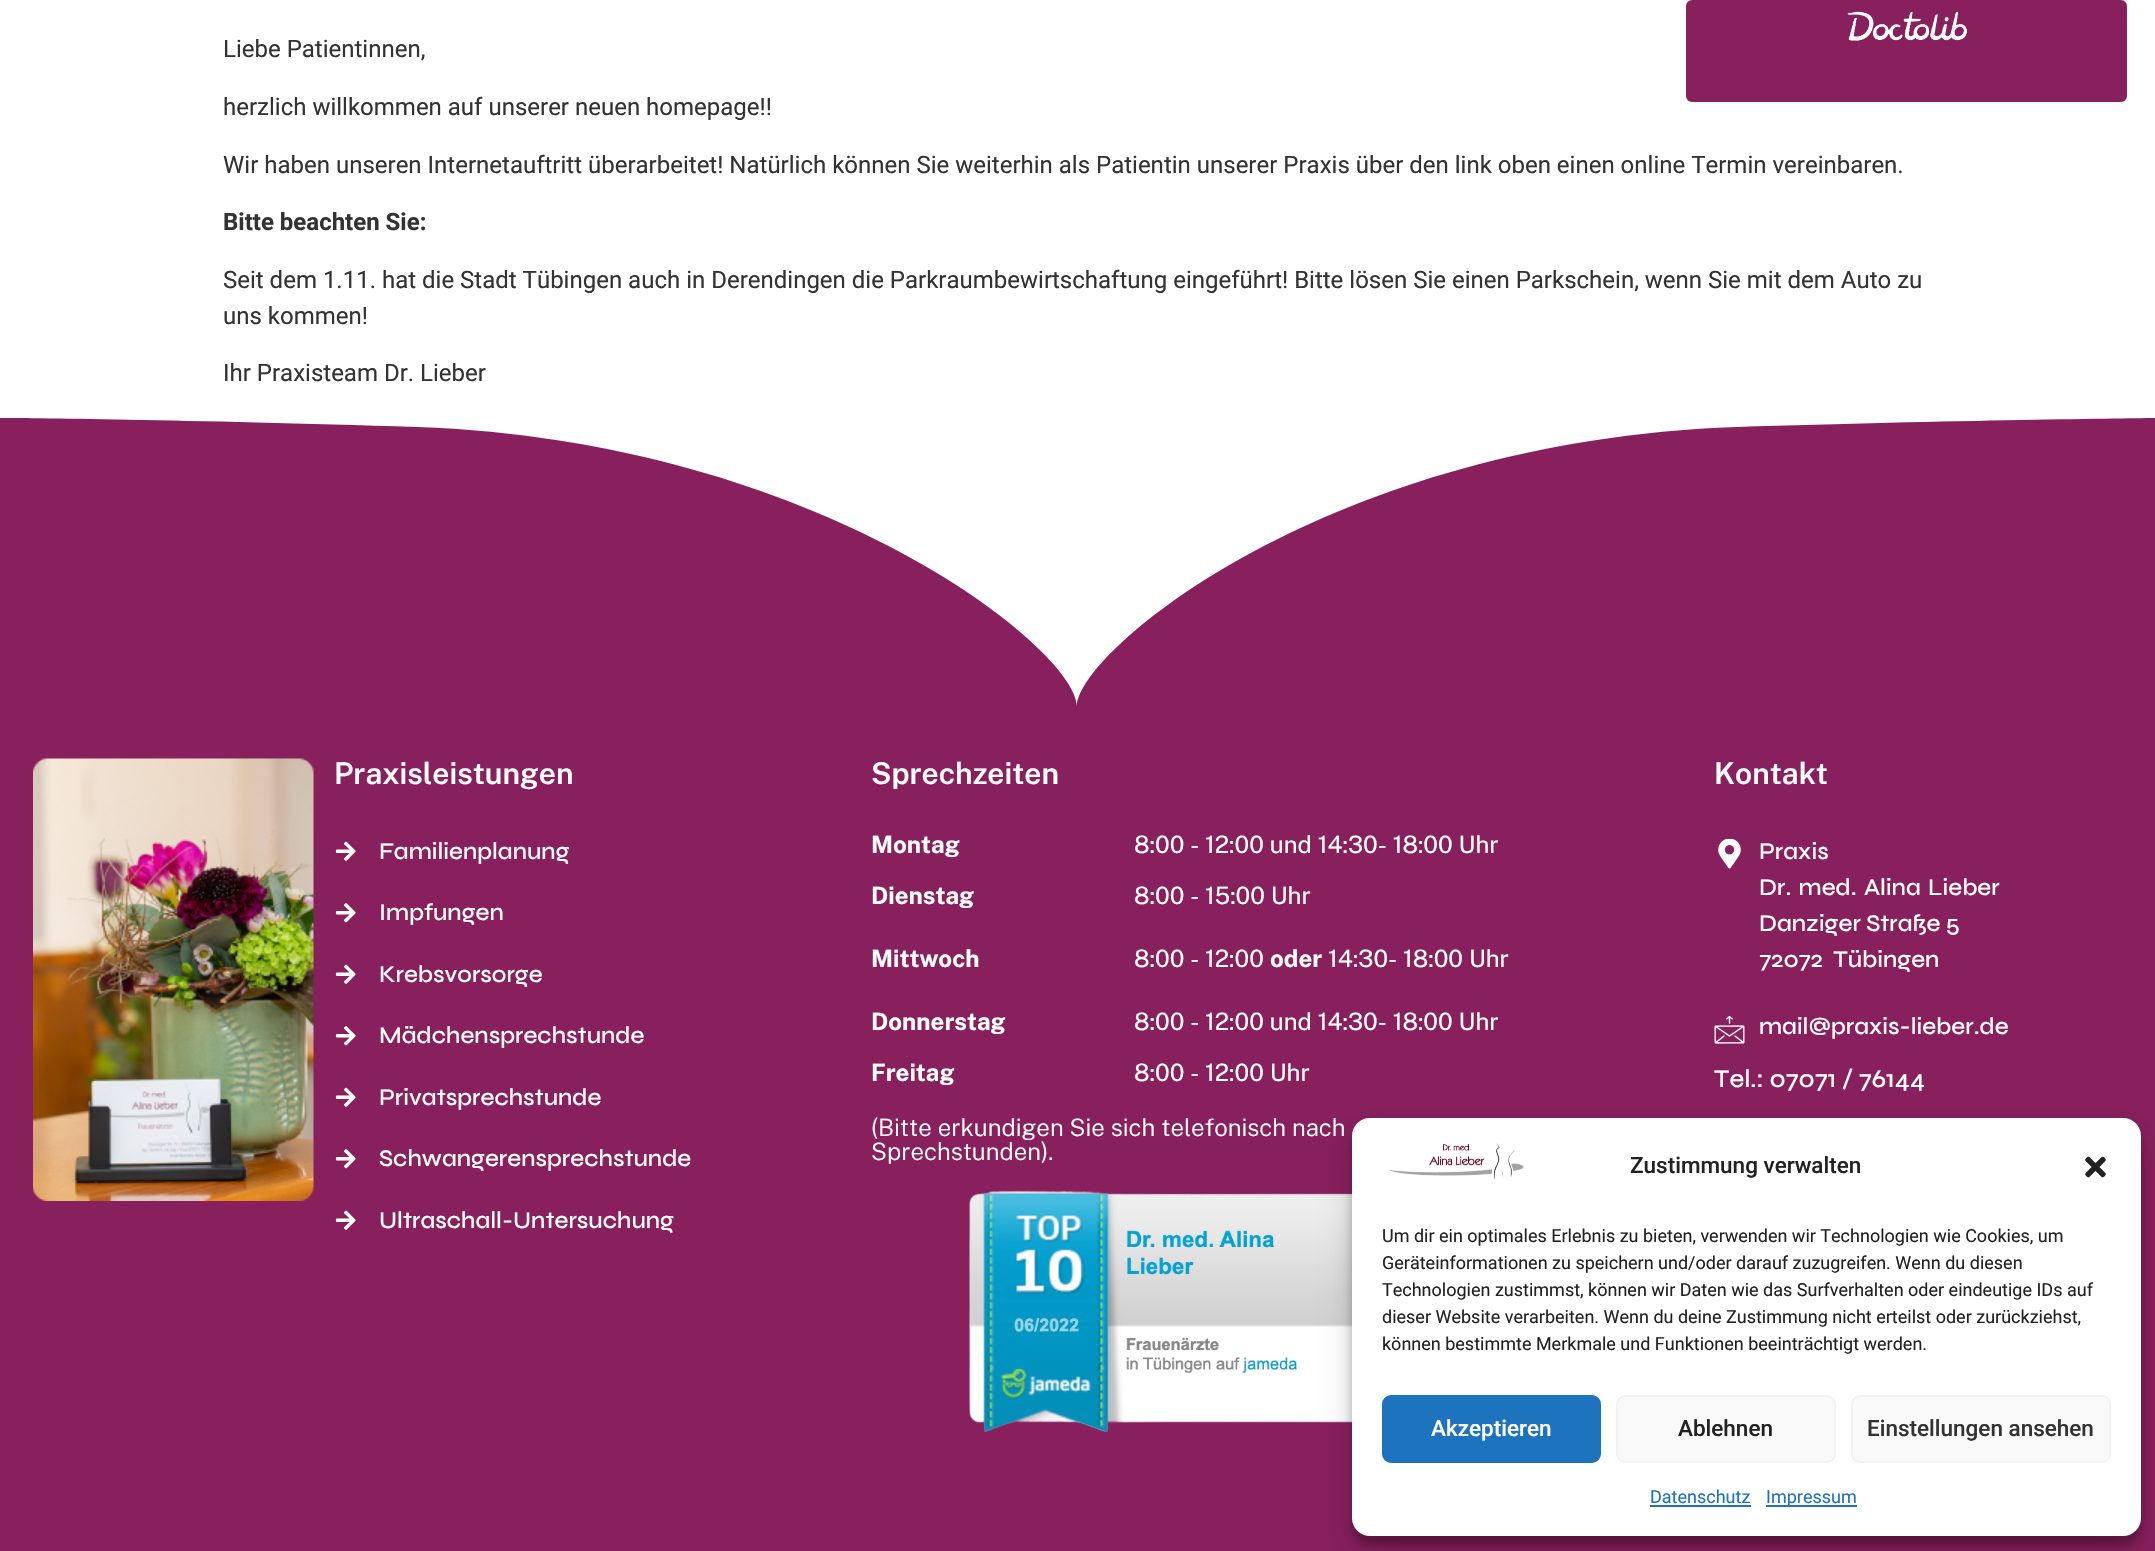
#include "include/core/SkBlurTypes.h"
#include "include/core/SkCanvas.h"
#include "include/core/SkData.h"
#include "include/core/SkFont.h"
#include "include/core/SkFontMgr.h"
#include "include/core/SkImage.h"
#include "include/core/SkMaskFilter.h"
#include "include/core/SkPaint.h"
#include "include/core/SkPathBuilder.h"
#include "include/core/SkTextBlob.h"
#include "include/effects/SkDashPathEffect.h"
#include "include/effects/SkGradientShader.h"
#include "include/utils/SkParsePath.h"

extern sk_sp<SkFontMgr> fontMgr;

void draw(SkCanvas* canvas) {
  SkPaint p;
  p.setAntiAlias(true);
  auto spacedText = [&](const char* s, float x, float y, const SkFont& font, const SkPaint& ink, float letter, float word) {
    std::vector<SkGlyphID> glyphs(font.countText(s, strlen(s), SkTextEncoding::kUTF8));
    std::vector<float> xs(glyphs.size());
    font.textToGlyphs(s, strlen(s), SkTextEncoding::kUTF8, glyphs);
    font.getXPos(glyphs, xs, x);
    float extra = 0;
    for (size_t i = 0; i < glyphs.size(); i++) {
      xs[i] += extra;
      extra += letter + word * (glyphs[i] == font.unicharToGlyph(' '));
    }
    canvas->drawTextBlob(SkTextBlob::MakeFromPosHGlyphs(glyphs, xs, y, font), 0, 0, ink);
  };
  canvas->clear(SK_ColorWHITE);
  p.setColor(SkColorSetRGB(136, 32, 93));
  canvas->drawRoundRect(SkRect::MakeLTRB(1686, 0, 2127, 102), 6, 6, p);
  canvas->drawImageRect(SkImages::DeferredFromEncodedData(SkData::MakeFromFileName("images/1.png")), SkRect::MakeLTRB(1847, 11, 1967, 41), SkSamplingOptions());
  canvas->drawRect(SkRect::MakeLTRB(0, 418, 2155, 1551), p);
  canvas->save();
  canvas->clipRect(SkRect::MakeLTRB(0, 413, 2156, 713));
  p.setColor(SK_ColorWHITE);
  canvas->drawPath(SkPathBuilder().moveTo(417, 427).cubicTo(819, 441, 1077, 650, 1077, 706).cubicTo(1079, 650, 1330, 441, 1737, 427).cubicTo(1957, 420, 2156, 418, 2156, 418).lineTo(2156, 411).lineTo(-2, 411).lineTo(-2, 418).cubicTo(-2, 418, 170, 419, 417, 427).close().moveTo(1401, 516).close().detach(), p);
  canvas->restore();
  canvas->drawImageRect(SkImages::DeferredFromEncodedData(SkData::MakeFromFileName("images/2.png")), SkRect::MakeLTRB(33, 758, 314, 1201), SkSamplingOptions());
  canvas->drawImageRect(SkImages::DeferredFromEncodedData(SkData::MakeFromFileName("images/3.png")), SkRect::MakeLTRB(335, 841, 356, 861), SkSamplingOptions());
  canvas->drawImageRect(SkImages::DeferredFromEncodedData(SkData::MakeFromFileName("images/4.png")), SkRect::MakeLTRB(335, 903, 356, 923), SkSamplingOptions());
  canvas->drawImageRect(SkImages::DeferredFromEncodedData(SkData::MakeFromFileName("images/3.png")), SkRect::MakeLTRB(335, 964, 356, 984), SkSamplingOptions());
  canvas->drawImageRect(SkImages::DeferredFromEncodedData(SkData::MakeFromFileName("images/4.png")), SkRect::MakeLTRB(335, 1026, 356, 1046), SkSamplingOptions());
  canvas->drawImageRect(SkImages::DeferredFromEncodedData(SkData::MakeFromFileName("images/3.png")), SkRect::MakeLTRB(335, 1087, 356, 1107), SkSamplingOptions());
  canvas->drawImageRect(SkImages::DeferredFromEncodedData(SkData::MakeFromFileName("images/4.png")), SkRect::MakeLTRB(335, 1149, 356, 1169), SkSamplingOptions());
  canvas->drawImageRect(SkImages::DeferredFromEncodedData(SkData::MakeFromFileName("images/3.png")), SkRect::MakeLTRB(335, 1210, 356, 1230), SkSamplingOptions());
  canvas->drawImageRect(SkImages::DeferredFromEncodedData(SkData::MakeFromFileName("images/5.png")), SkRect::MakeLTRB(969, 1190, 1352, 1432), SkSamplingOptions());
  canvas->drawImageRect(SkImages::DeferredFromEncodedData(SkData::MakeFromFileName("images/6.png")), SkRect::MakeLTRB(1718, 839, 1741, 869), SkSamplingOptions());
  canvas->drawImageRect(SkImages::DeferredFromEncodedData(SkData::MakeFromFileName("images/7.png")), SkRect::MakeLTRB(1714, 1015, 1745, 1044), SkSamplingOptions());
  p.setColor(SkColorSetARGB(59, 0, 0, 0));
  p.setMaskFilter(SkMaskFilter::MakeBlur(kNormal_SkBlurStyle, 4.5f));
  canvas->drawRoundRect(SkRect::MakeLTRB(1352, 1127, 2141, 1545), 18, 18, p);
  p.setMaskFilter(nullptr);
  p.setColor(SkColorSetARGB(48, 0, 0, 0));
  p.setMaskFilter(SkMaskFilter::MakeBlur(kNormal_SkBlurStyle, 15));
  canvas->drawRoundRect(SkRect::MakeLTRB(1352, 1133, 2141, 1551), 18, 18, p);
  p.setMaskFilter(nullptr);
  p.setColor(SK_ColorWHITE);
  canvas->drawRoundRect(SkRect::MakeLTRB(1352, 1118, 2141, 1536), 18, 18, p);
  canvas->drawImageRect(SkImages::DeferredFromEncodedData(SkData::MakeFromFileName("images/8.png")), SkRect::MakeLTRB(1389, 1142, 1524, 1180), SkSamplingOptions());
  canvas->drawImageRect(SkImages::DeferredFromEncodedData(SkData::MakeFromFileName("images/9.png")), SkRect::MakeLTRB(2085, 1156, 2106, 1178), SkSamplingOptions());
  p.setColor(SkColorSetRGB(30, 115, 190));
  canvas->drawRoundRect(SkRect::MakeLTRB(1383, 1396, 1600, 1462), 8, 8, p);
  p.setStyle(SkPaint::kStroke_Style);
  p.setStrokeWidth(2);
  canvas->drawRoundRect(SkRect::MakeLTRB(1383, 1396, 1600, 1462), 8, 8, p);
  p.setStyle(SkPaint::kFill_Style);
  p.setColor(SkColorSetRGB(249, 249, 249));
  canvas->drawRoundRect(SkRect::MakeLTRB(1617, 1396, 1835, 1462), 8, 8, p);
  p.setStyle(SkPaint::kStroke_Style);
  p.setColor(SkColorSetRGB(242, 242, 242));
  canvas->drawRoundRect(SkRect::MakeLTRB(1617, 1396, 1835, 1462), 8, 8, p);
  p.setStyle(SkPaint::kFill_Style);
  p.setColor(SkColorSetRGB(249, 249, 249));
  canvas->drawRoundRect(SkRect::MakeLTRB(1852, 1396, 2110, 1462), 8, 8, p);
  p.setStyle(SkPaint::kStroke_Style);
  p.setColor(SkColorSetRGB(242, 242, 242));
  canvas->drawRoundRect(SkRect::MakeLTRB(1852, 1396, 2110, 1462), 8, 8, p);
  p.setStyle(SkPaint::kFill_Style);
  p.setColor(SkColorSetRGB(30, 115, 190));
  canvas->drawRect(SkRect::MakeLTRB(1650, 1505, 1751, 1507), p);
  canvas->drawRect(SkRect::MakeLTRB(1766, 1505, 1857, 1507), p);
  SkFont font1(fontMgr->matchFamilyStyle("Roboto", SkFontStyle::Normal()), 24);
  font1.setSubpixel(true);
  p.setColor(SkColorSetRGB(51, 51, 51));
  canvas->drawString("Liebe Patientinnen,", 223, 57, font1, p);
  canvas->drawString("herzlich willkommen auf unserer neuen homepage!!", 223, 115, font1, p);
  canvas->drawString("Wir haben unseren Internetauftritt überarbeitet! Natürlich können Sie weiterhin als Patientin unserer Praxis über den link oben einen online Termin vereinbaren.", 223, 173, font1, p);
  SkFont font2(fontMgr->matchFamilyStyle("Roboto", SkFontStyle::Bold()), 24);
  font2.setSubpixel(true);
  canvas->drawString("Bitte beachten Sie:", 223, 230, font2, p);
  canvas->drawString("Seit dem 1.11. hat die Stadt Tübingen auch in Derendingen die Parkraumbewirtschaftung eingeführt! Bitte lösen Sie einen Parkschein, wenn Sie mit dem Auto zu", 223, 288, font1, p);
  canvas->drawString("uns kommen!", 223, 324, font1, p);
  canvas->drawString("Ihr Praxisteam Dr. Lieber", 223, 381, font1, p);
  SkFont font3(fontMgr->matchFamilyStyle("Public Sans", SkFontStyle(600, SkFontStyle::kNormal_Width, SkFontStyle::kUpright_Slant)), 30);
  font3.setSubpixel(true);
  p.setColor(SK_ColorWHITE);
  canvas->drawString("Praxisleistungen", 334, 784, font3, p);
  SkFont font4(fontMgr->matchFamilyStyle("Syne", SkFontStyle(500, SkFontStyle::kNormal_Width, SkFontStyle::kUpright_Slant)), 24);
  font4.setSubpixel(true);
  canvas->drawString("Familienplanung", 379, 859, font4, p);
  canvas->drawString("Impfungen", 379, 920, font4, p);
  canvas->drawString("Krebsvorsorge", 379, 982, font4, p);
  canvas->drawString("Mädchensprechstunde", 379, 1043, font4, p);
  canvas->drawString("Privatsprechstunde", 379, 1105, font4, p);
  canvas->drawString("Schwangerensprechstunde", 379, 1166, font4, p);
  canvas->drawString("Ultraschall-Untersuchung", 379, 1228, font4, p);
  canvas->drawString("Sprechzeiten", 871, 784, font3, p);
  SkFont font5(fontMgr->matchFamilyStyle("Public Sans", SkFontStyle::Bold()), 24);
  font5.setSubpixel(true);
  canvas->drawString("Montag", 871, 853, font5, p);
  SkFont font6(fontMgr->matchFamilyStyle("Public Sans", SkFontStyle::Normal()), 24);
  font6.setSubpixel(true);
  canvas->drawString("8:00 - 12:00 und 14:30- 18:00 Uhr", 1134, 853, font6, p);
  canvas->drawString("Dienstag", 871, 904, font5, p);
  canvas->drawString("8:00 - 15:00 Uhr", 1134, 904, font6, p);
  canvas->drawString("Mittwoch", 871, 967, font5, p);
  canvas->drawString("8:00 - 12:00", 1134, 967, font6, p);
  canvas->drawString("oder", 1270, 967, font5, p);
  canvas->drawString("14:30- 18:00 Uhr", 1328, 967, font6, p);
  canvas->drawString("Donnerstag", 871, 1030, font5, p);
  canvas->drawString("8:00 - 12:00 und 14:30- 18:00 Uhr", 1134, 1030, font6, p);
  canvas->drawString("Freitag", 871, 1081, font5, p);
  canvas->drawString("8:00 - 12:00 Uhr", 1134, 1081, font6, p);
  SkFont font7(fontMgr->matchFamilyStyle("Public Sans", SkFontStyle(300, SkFontStyle::kNormal_Width, SkFontStyle::kUpright_Slant)), 24);
  font7.setSubpixel(true);
  canvas->drawString("(Bitte erkundigen Sie sich telefonisch nach", 871, 1136, font7, p);
  canvas->drawString("Sprechstunden).", 871, 1160, font7, p);
  canvas->drawString("Kontakt", 1714, 784, font3, p);
  canvas->drawString("Praxis", 1759, 859, font4, p);
  spacedText("Dr. med. Alina Lieber", 1759, 895, font4, p, 0, 2);
  canvas->drawString("Danziger Straße 5", 1759, 931, font4, p);
  spacedText("72072 Tübingen", 1759, 967, font4, p, 0, 5);
  canvas->drawString("mail@praxis-lieber.de", 1759, 1034, font4, p);
  SkFont font8(fontMgr->matchFamilyStyle("Syne", SkFontStyle(500, SkFontStyle::kNormal_Width, SkFontStyle::kUpright_Slant)), 25.5f);
  font8.setSubpixel(true);
  canvas->drawString("Tel.: 07071 / 76144", 1714, 1087, font8, p);
  SkFont font9(fontMgr->matchFamilyStyle("Roboto", SkFontStyle(500, SkFontStyle::kNormal_Width, SkFontStyle::kUpright_Slant)), 22.5f);
  font9.setSubpixel(true);
  p.setColor(SkColorSetRGB(34, 34, 34));
  canvas->drawString("Zustimmung verwalten", 1630, 1173, font9, p);
  SkFont font10(fontMgr->matchFamilyStyle("Roboto", SkFontStyle::Normal()), 18);
  font10.setSubpixel(true);
  canvas->drawString("Um dir ein optimales Erlebnis zu bieten, verwenden wir Technologien wie Cookies, um", 1382, 1242, font10, p);
  canvas->drawString("Geräteinformationen zu speichern und/oder darauf zuzugreifen. Wenn du diesen", 1382, 1269, font10, p);
  canvas->drawString("Technologien zustimmst, können wir Daten wie das Surfverhalten oder eindeutige IDs auf", 1382, 1296, font10, p);
  canvas->drawString("dieser Website verarbeiten. Wenn du deine Zustimmung nicht erteilst oder zurückziehst,", 1382, 1323, font10, p);
  canvas->drawString("können bestimmte Merkmale und Funktionen beeinträchtigt werden.", 1382, 1350, font10, p);
  p.setColor(SK_ColorWHITE);
  canvas->drawString("Akzeptieren", 1431, 1436, font9, p);
  p.setColor(SkColorSetRGB(34, 34, 34));
  canvas->drawString("Ablehnen", 1678, 1436, font9, p);
  p.setColor(SkColorSetRGB(51, 51, 51));
  canvas->drawString("Einstellungen ansehen", 1867, 1436, font9, p);
  p.setColor(SkColorSetRGB(30, 115, 190));
  canvas->drawString("Datenschutz", 1650, 1503, font10, p);
  canvas->drawString("Impressum", 1766, 1503, font10, p);
}
